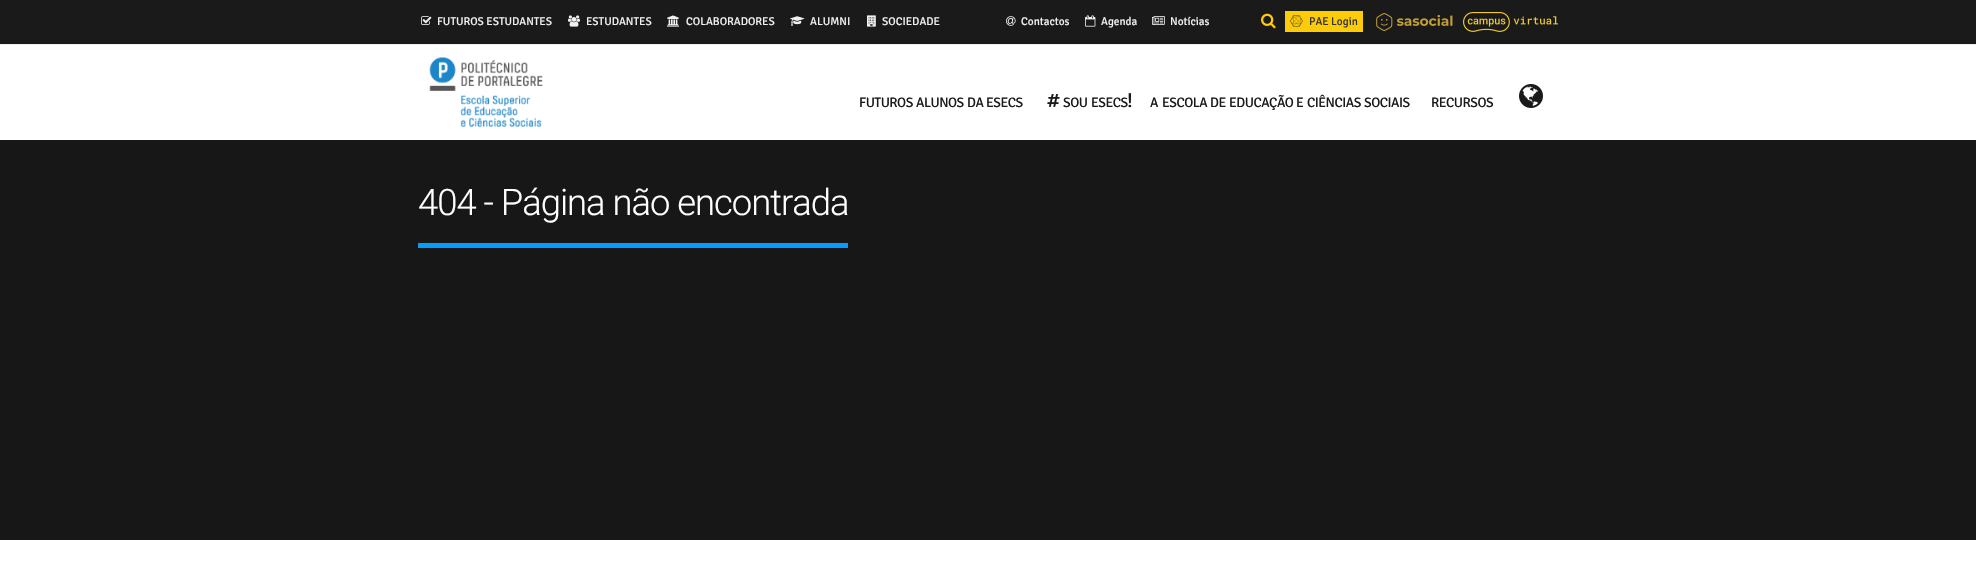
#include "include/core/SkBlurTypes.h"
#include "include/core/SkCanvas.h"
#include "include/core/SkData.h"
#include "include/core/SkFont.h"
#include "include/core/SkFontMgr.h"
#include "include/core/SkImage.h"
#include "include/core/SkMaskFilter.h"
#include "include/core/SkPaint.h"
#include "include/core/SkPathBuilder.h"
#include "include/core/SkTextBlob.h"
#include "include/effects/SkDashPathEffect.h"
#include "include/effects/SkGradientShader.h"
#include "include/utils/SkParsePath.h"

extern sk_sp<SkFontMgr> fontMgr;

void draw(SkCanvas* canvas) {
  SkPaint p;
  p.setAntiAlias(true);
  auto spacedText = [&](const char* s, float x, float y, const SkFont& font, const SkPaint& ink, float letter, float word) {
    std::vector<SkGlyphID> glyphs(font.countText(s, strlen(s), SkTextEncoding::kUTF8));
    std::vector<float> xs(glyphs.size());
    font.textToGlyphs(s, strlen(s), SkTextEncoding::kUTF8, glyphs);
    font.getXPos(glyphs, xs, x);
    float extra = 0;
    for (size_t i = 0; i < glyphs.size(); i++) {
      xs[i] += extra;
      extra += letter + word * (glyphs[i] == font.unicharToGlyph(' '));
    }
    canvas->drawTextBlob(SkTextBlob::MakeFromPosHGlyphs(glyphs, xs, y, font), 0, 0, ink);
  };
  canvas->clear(SK_ColorWHITE);
  p.setColor(SkColorSetRGB(26, 26, 26));
  canvas->drawRect(SkRect::MakeLTRB(0, 0, 1976, 44), p);
  p.setColor(SkColorSetRGB(237, 237, 237));
  canvas->drawRect(SkRect::MakeLTRB(0, 44, 1976, 45), p);
  canvas->drawImageRect(SkImages::DeferredFromEncodedData(SkData::MakeFromFileName("images/1.png")), SkRect::MakeLTRB(421, 16, 432, 25), SkSamplingOptions());
  canvas->drawImageRect(SkImages::DeferredFromEncodedData(SkData::MakeFromFileName("images/2.png")), SkRect::MakeLTRB(568, 15, 580, 27), SkSamplingOptions());
  canvas->drawImageRect(SkImages::DeferredFromEncodedData(SkData::MakeFromFileName("images/3.png")), SkRect::MakeLTRB(667, 15, 679, 27), SkSamplingOptions());
  canvas->drawImageRect(SkImages::DeferredFromEncodedData(SkData::MakeFromFileName("images/4.png")), SkRect::MakeLTRB(790, 16, 805, 26), SkSamplingOptions());
  canvas->drawImageRect(SkImages::DeferredFromEncodedData(SkData::MakeFromFileName("images/5.png")), SkRect::MakeLTRB(867, 15, 876, 27), SkSamplingOptions());
  canvas->drawImageRect(SkImages::DeferredFromEncodedData(SkData::MakeFromFileName("images/6.png")), SkRect::MakeLTRB(1006, 16, 1016, 26), SkSamplingOptions());
  canvas->drawImageRect(SkImages::DeferredFromEncodedData(SkData::MakeFromFileName("images/7.png")), SkRect::MakeLTRB(1085, 15, 1096, 27), SkSamplingOptions());
  canvas->drawImageRect(SkImages::DeferredFromEncodedData(SkData::MakeFromFileName("images/8.png")), SkRect::MakeLTRB(1152, 16, 1165, 25), SkSamplingOptions());
  canvas->drawImageRect(SkImages::DeferredFromEncodedData(SkData::MakeFromFileName("images/9.png")), SkRect::MakeLTRB(1261, 13, 1276, 29), SkSamplingOptions());
  p.setColor(SkColorSetRGB(254, 203, 8));
  canvas->drawRect(SkRect::MakeLTRB(1285, 11, 1363, 32), p);
  canvas->drawImageRect(SkImages::DeferredFromEncodedData(SkData::MakeFromFileName("images/10.png")), SkRect::MakeLTRB(1290, 15, 1303, 27), SkSamplingOptions());
  canvas->drawImageRect(SkImages::DeferredFromEncodedData(SkData::MakeFromFileName("images/11.png")), SkRect::MakeLTRB(1376, 13, 1453, 31), SkSamplingOptions());
  canvas->drawImageRect(SkImages::DeferredFromEncodedData(SkData::MakeFromFileName("images/12.png")), SkRect::MakeLTRB(1463, 12, 1558, 32), SkSamplingOptions());
  canvas->drawImageRect(SkImages::DeferredFromEncodedData(SkData::MakeFromFileName("images/13.png")), SkRect::MakeLTRB(429, 57, 543, 128), SkSamplingOptions());
  canvas->drawImageRect(SkImages::DeferredFromEncodedData(SkData::MakeFromFileName("images/14.png")), SkRect::MakeLTRB(1519, 84, 1543, 108), SkSamplingOptions());
  p.setColor(SkColorSetRGB(23, 23, 23));
  canvas->drawRect(SkRect::MakeLTRB(0, 140, 1976, 540), p);
  p.setColor(SkColorSetRGB(3, 156, 255));
  canvas->drawRect(SkRect::MakeLTRB(418, 243, 848, 248), p);
  SkFont font1(fontMgr->matchFamilyStyle("Signika", SkFontStyle::Normal()), 11.25f);
  font1.setSubpixel(true);
  p.setColor(SkColorSetRGB(241, 241, 242));
  canvas->drawString("FUTUROS ESTUDANTES", 437, 25, font1, p);
  canvas->drawString("ESTUDANTES", 586, 25, font1, p);
  canvas->drawString("COLABORADORES", 686, 25, font1, p);
  canvas->drawString("ALUMNI", 810, 25, font1, p);
  canvas->drawString("SOCIEDADE", 882, 25, font1, p);
  canvas->drawString("Contactos", 1021, 25, font1, p);
  canvas->drawString("Agenda", 1101, 25, font1, p);
  canvas->drawString("Notícias", 1170, 25, font1, p);
  p.setColor(SkColorSetRGB(51, 51, 51));
  canvas->drawString("PAE Login", 1309, 25, font1, p);
  SkFont font2(fontMgr->matchFamilyStyle("Signika", SkFontStyle::Normal()), 13.75f);
  font2.setSubpixel(true);
  p.setColor(SkColorSetRGB(26, 26, 26));
  spacedText("FUTUROS", 859, 107, font2, p, -0.5f, 0);
  spacedText("ALUNOS", 916, 107, font2, p, -0.5f, 0);
  spacedText("DA", 967, 107, font2, p, -0.5f, 0);
  spacedText("ESECS", 986, 107, font2, p, -0.5f, 0);
  SkFont font3(fontMgr->matchFamilyStyle("Signika", SkFontStyle::Normal()), 20);
  font3.setSubpixel(true);
  spacedText("#", 1047, 107, font3, p, -0.5f, 0);
  spacedText("SOU", 1063, 107, font2, p, -0.5f, 0);
  spacedText("ESECS", 1091, 107, font2, p, -0.5f, 0);
  spacedText("!", 1127, 107, font3, p, -0.5f, 0);
  spacedText("A", 1150, 107, font2, p, -0.5f, 0);
  spacedText("ESCOLA", 1162, 107, font2, p, -0.5f, 0);
  spacedText("DE", 1210, 107, font2, p, -0.5f, 0);
  spacedText("EDUCAÇÃO", 1229, 107, font2, p, -0.5f, 0);
  spacedText("E", 1296, 107, font2, p, -0.5f, 0);
  spacedText("CIÊNCIAS", 1307, 107, font2, p, -0.5f, 0);
  spacedText("SOCIAIS", 1364, 107, font2, p, -0.5f, 0);
  spacedText("RECURSOS", 1431, 107, font2, p, -0.5f, 0);
  SkFont font4(fontMgr->matchFamilyStyle("Roboto", SkFontStyle(300, SkFontStyle::kNormal_Width, SkFontStyle::kUpright_Slant)), 36.4f);
  font4.setSubpixel(true);
  p.setColor(SK_ColorWHITE);
  spacedText("404 - Página não encontrada", 418, 215, font4, p, -1, 0);
}
